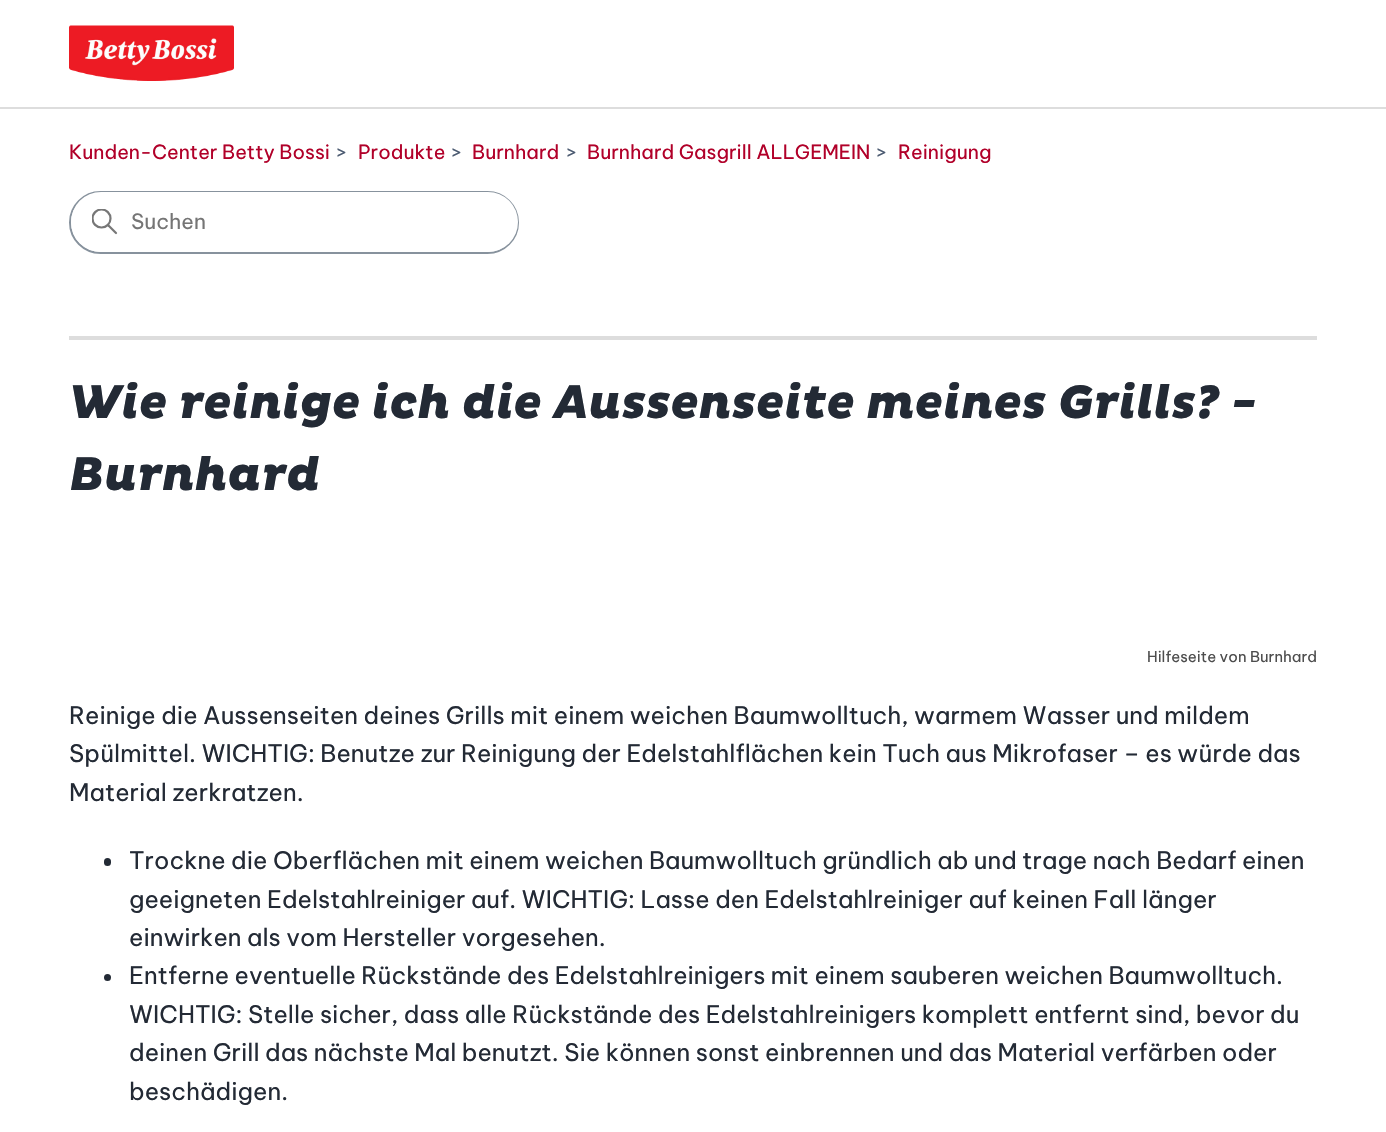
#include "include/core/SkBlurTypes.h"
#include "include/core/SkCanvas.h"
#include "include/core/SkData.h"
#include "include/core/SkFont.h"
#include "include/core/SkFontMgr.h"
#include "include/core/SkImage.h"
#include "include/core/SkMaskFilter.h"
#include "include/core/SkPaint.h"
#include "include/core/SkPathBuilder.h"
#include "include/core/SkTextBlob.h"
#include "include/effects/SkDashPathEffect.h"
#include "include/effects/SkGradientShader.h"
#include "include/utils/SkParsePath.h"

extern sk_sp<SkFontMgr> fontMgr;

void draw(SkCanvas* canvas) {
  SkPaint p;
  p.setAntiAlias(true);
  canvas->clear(SK_ColorWHITE);
  canvas->drawImageRect(SkImages::DeferredFromEncodedData(SkData::MakeFromFileName("images/1.png")), SkRect::MakeLTRB(69, 25, 234, 81), SkSamplingOptions());
  p.setColor(SkColorSetRGB(221, 221, 221));
  canvas->drawRect(SkRect::MakeLTRB(0, 107, 1386, 109), p);
  p.setStyle(SkPaint::kStroke_Style);
  p.setStrokeWidth(2);
  p.setColor(SkColorSetRGB(135, 146, 157));
  canvas->drawRoundRect(SkRect::MakeLTRB(70, 192, 518, 253), 30.5f, 30.5f, p);
  p.setStyle(SkPaint::kFill_Style);
  p.setColor(SK_ColorWHITE);
  canvas->drawRoundRect(SkRect::MakeLTRB(71, 192, 518, 252), 30, 30, p);
  canvas->save();
  canvas->clipRect(SkRect::MakeLTRB(92, 209, 119, 236));
  p.setStyle(SkPaint::kStroke_Style);
  p.setStrokeWidth(2.2f);
  p.setColor(SkColorSetRGB(119, 119, 119));
  canvas->drawCircle(101.5f, 218.5f, 9, p);
  canvas->restore();
  p.setStrokeCap(SkPaint::kRound_Cap);
  canvas->drawPath(SkPathBuilder().moveTo(116, 233).lineTo(108.5f, 225.5f).detach(), p);
  p.setStyle(SkPaint::kFill_Style);
  p.setColor(SkColorSetRGB(221, 221, 221));
  canvas->drawRect(SkRect::MakeLTRB(69, 336, 1317, 340), p);
  p.setColor(SkColorSetRGB(35, 42, 53));
  canvas->drawRoundRect(SkRect::MakeLTRB(104, 858, 111, 866), 3.5f, 3.5f, p);
  canvas->drawCircle(107.5f, 977.5f, 3.5f, p);
  SkFont font1(fontMgr->matchFamilyStyle("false", SkFontStyle::Normal()), 19.5f);
  font1.setSubpixel(true);
  p.setColor(SkColorSetRGB(177, 0, 41));
  canvas->drawString("Kunden-Center Betty Bossi", 69, 159, font1, p);
  p.setColor(SkColorSetRGB(76, 91, 114));
  canvas->drawString(">", 336, 159, font1, p);
  p.setColor(SkColorSetRGB(177, 0, 41));
  canvas->drawString("Produkte", 358, 159, font1, p);
  p.setColor(SkColorSetRGB(76, 91, 114));
  canvas->drawString(">", 451, 159, font1, p);
  p.setColor(SkColorSetRGB(177, 0, 41));
  canvas->drawString("Burnhard", 472, 159, font1, p);
  p.setColor(SkColorSetRGB(76, 91, 114));
  canvas->drawString(">", 566, 159, font1, p);
  p.setColor(SkColorSetRGB(177, 0, 41));
  canvas->drawString("Burnhard Gasgrill ALLGEMEIN", 587, 159, font1, p);
  p.setColor(SkColorSetRGB(76, 91, 114));
  canvas->drawString(">", 876, 159, font1, p);
  p.setColor(SkColorSetRGB(177, 0, 41));
  canvas->drawString("Reinigung", 898, 159, font1, p);
  SkFont font2(fontMgr->matchFamilyStyle("false", SkFontStyle::Normal()), 21);
  font2.setSubpixel(true);
  p.setColor(SkColorSetRGB(117, 117, 117));
  canvas->drawString("Suchen", 131, 229, font2, p);
  SkFont font3(fontMgr->matchFamilyStyle("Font", SkFontStyle(800, SkFontStyle::kNormal_Width, SkFontStyle::kItalic_Slant)), 48);
  font3.setSubpixel(true);
  p.setColor(SkColorSetRGB(35, 42, 53));
  canvas->drawString("Wie reinige ich die Aussenseite meines Grills? -", 69, 418, font3, p);
  canvas->drawString("Burnhard", 69, 490, font3, p);
  SkFont font4(fontMgr->matchFamilyStyle("false", SkFontStyle::Normal()), 15);
  font4.setSubpixel(true);
  p.setColor(SkColorSetRGB(77, 77, 77));
  canvas->drawString("Hilfeseite von Burnhard", 1147, 662, font4, p);
  SkFont font5(fontMgr->matchFamilyStyle("false", SkFontStyle::Normal()), 24);
  font5.setSubpixel(true);
  p.setColor(SkColorSetRGB(35, 42, 53));
  canvas->drawString("Reinige die Aussenseiten deines Grills mit einem weichen Baumwolltuch, warmem Wasser und mildem", 69, 724, font5, p);
  canvas->drawString("Spülmittel. WICHTIG: Benutze zur Reinigung der Edelstahlflächen kein Tuch aus Mikrofaser – es würde das", 69, 762, font5, p);
  canvas->drawString("Material zerkratzen.", 69, 801, font5, p);
  canvas->drawString("Trockne die Oberflächen mit einem weichen Baumwolltuch gründlich ab und trage nach Bedarf einen", 129, 869, font5, p);
  canvas->drawString("geeigneten Edelstahlreiniger auf. WICHTIG: Lasse den Edelstahlreiniger auf keinen Fall länger", 129, 908, font5, p);
  canvas->drawString("einwirken als vom Hersteller vorgesehen.", 129, 946, font5, p);
  canvas->drawString("Entferne eventuelle Rückstände des Edelstahlreinigers mit einem sauberen weichen Baumwolltuch.", 129, 984, font5, p);
  canvas->drawString("WICHTIG: Stelle sicher, dass alle Rückstände des Edelstahlreinigers komplett entfernt sind, bevor du", 129, 1023, font5, p);
  canvas->drawString("deinen Grill das nächste Mal benutzt. Sie können sonst einbrennen und das Material verfärben oder", 129, 1061, font5, p);
  canvas->drawString("beschädigen.", 129, 1100, font5, p);
}
